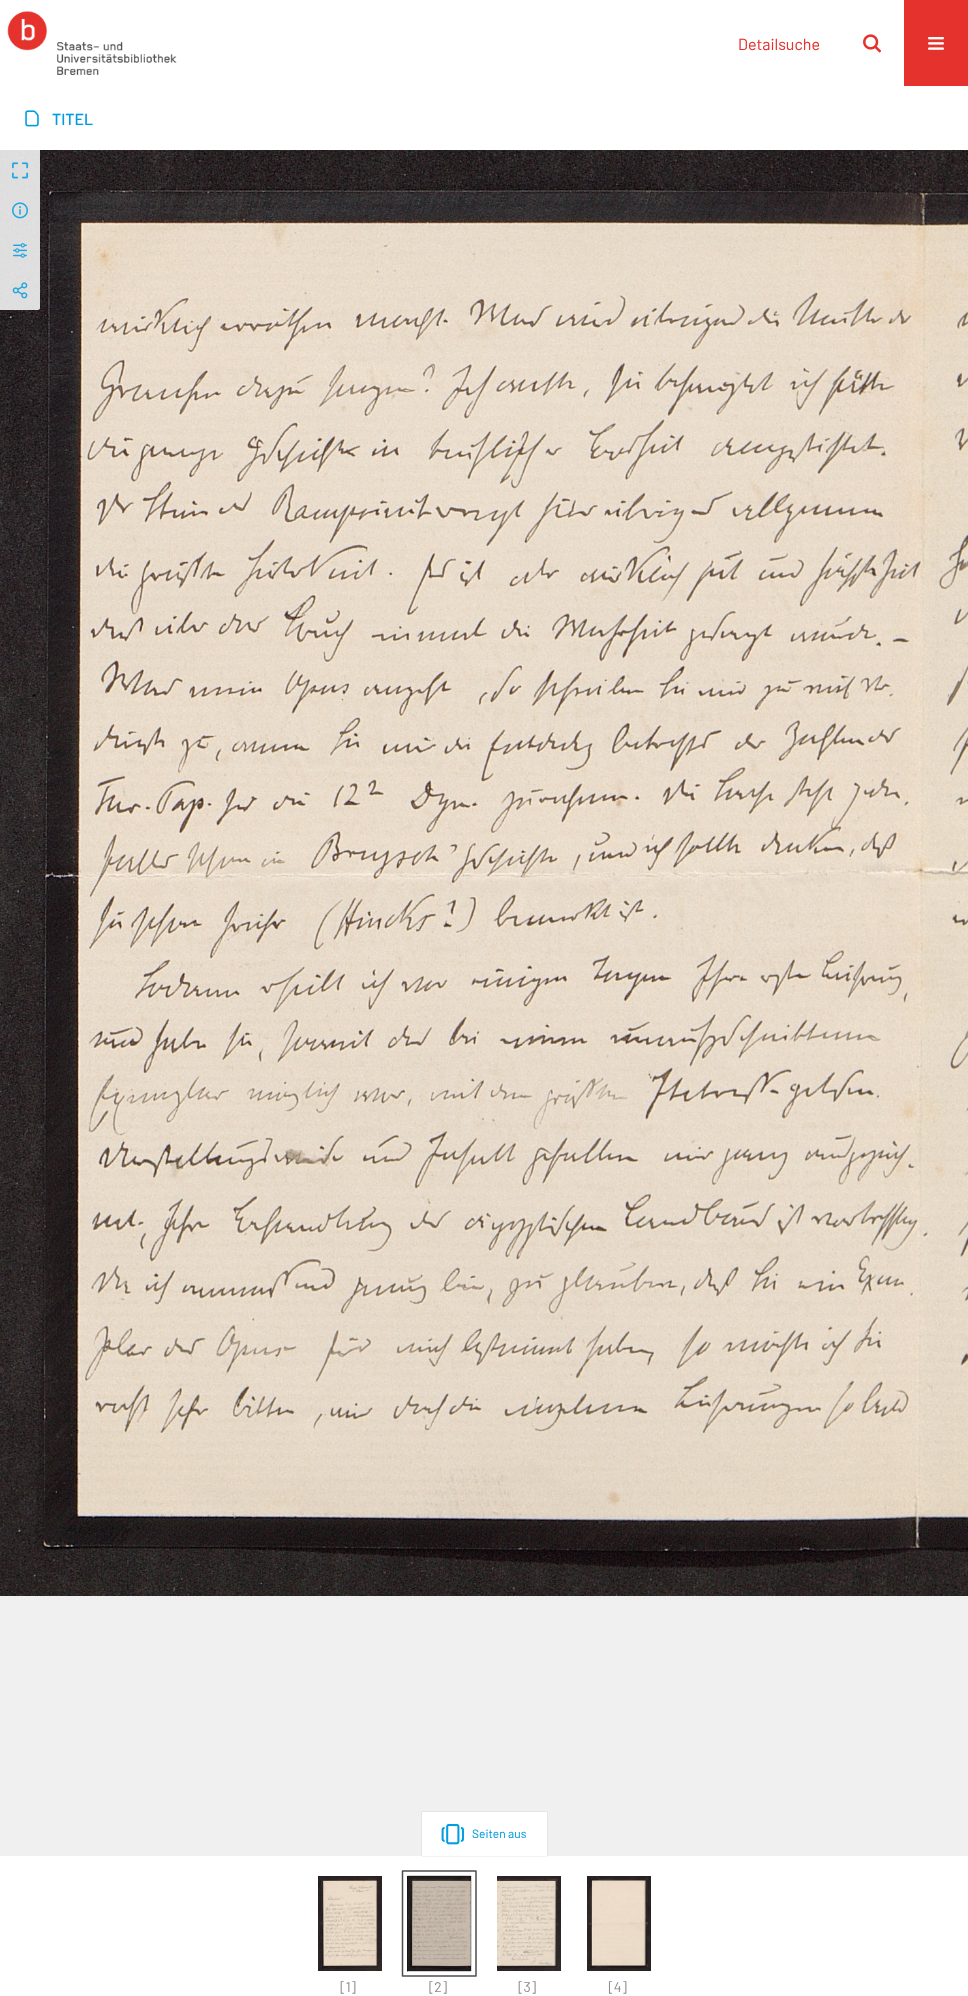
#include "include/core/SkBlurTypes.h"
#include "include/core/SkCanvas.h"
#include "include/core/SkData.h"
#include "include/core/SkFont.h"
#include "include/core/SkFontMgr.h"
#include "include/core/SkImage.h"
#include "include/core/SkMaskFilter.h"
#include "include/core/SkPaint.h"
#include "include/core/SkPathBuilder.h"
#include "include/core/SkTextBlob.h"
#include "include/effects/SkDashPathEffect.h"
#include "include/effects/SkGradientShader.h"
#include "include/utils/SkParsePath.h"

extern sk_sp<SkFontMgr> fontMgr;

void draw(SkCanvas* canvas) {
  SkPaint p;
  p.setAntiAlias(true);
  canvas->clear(SK_ColorWHITE);
  canvas->drawImageRect(SkImages::DeferredFromEncodedData(SkData::MakeFromFileName("images/1.png")), SkRect::MakeLTRB(7, 11, 177, 75), SkSamplingOptions());
  canvas->drawImageRect(SkImages::DeferredFromEncodedData(SkData::MakeFromFileName("images/2.png")), SkRect::MakeLTRB(863, 34, 882, 53), SkSamplingOptions());
  p.setColor(SkColorSetRGB(229, 50, 45));
  canvas->drawRect(SkRect::MakeLTRB(904, 0, 968, 86), p);
  canvas->drawImageRect(SkImages::DeferredFromEncodedData(SkData::MakeFromFileName("images/3.png")), SkRect::MakeLTRB(928, 37, 944, 50), SkSamplingOptions());
  canvas->drawImageRect(SkImages::DeferredFromEncodedData(SkData::MakeFromFileName("images/4.png")), SkRect::MakeLTRB(25, 110, 39, 127), SkSamplingOptions());
  canvas->drawImageRect(SkImages::DeferredFromEncodedData(SkData::MakeFromFileName("images/5.png")), SkRect::MakeLTRB(0, 150, 968, 1596), SkSamplingOptions());
  p.setColor(SkColorSetARGB(217, 255, 255, 255));
  canvas->drawRect(SkRect::MakeLTRB(0, 150, 40, 190), p);
  canvas->drawImageRect(SkImages::DeferredFromEncodedData(SkData::MakeFromFileName("images/6.png")), SkRect::MakeLTRB(12, 162, 29, 179), SkSamplingOptions());
  canvas->drawRect(SkRect::MakeLTRB(0, 190, 40, 230), p);
  canvas->drawImageRect(SkImages::DeferredFromEncodedData(SkData::MakeFromFileName("images/7.png")), SkRect::MakeLTRB(12, 202, 28, 219), SkSamplingOptions());
  canvas->drawRect(SkRect::MakeLTRB(0, 230, 40, 270), p);
  canvas->drawImageRect(SkImages::DeferredFromEncodedData(SkData::MakeFromFileName("images/8.png")), SkRect::MakeLTRB(13, 243, 27, 258), SkSamplingOptions());
  canvas->drawPath(SkPathBuilder().moveTo(0, 270).lineTo(40, 270).lineTo(40, 308).cubicTo(40, 309, 39, 310, 38, 310).lineTo(0, 310).close().detach(), p);
  canvas->drawImageRect(SkImages::DeferredFromEncodedData(SkData::MakeFromFileName("images/9.png")), SkRect::MakeLTRB(12, 282, 28, 299), SkSamplingOptions());
  p.setColor(SkColorSetRGB(240, 240, 240));
  canvas->drawRect(SkRect::MakeLTRB(0, 1596, 968, 1856), p);
  p.setColor(SkColorSetARGB(69, 0, 0, 0));
  p.setMaskFilter(SkMaskFilter::MakeBlur(kNormal_SkBlurStyle, 0.5f));
  canvas->drawRect(SkRect::MakeLTRB(422, 1812, 547, 1856), p);
  p.setMaskFilter(nullptr);
  p.setColor(SK_ColorWHITE);
  canvas->drawRect(SkRect::MakeLTRB(422, 1812, 547, 1856), p);
  canvas->drawImageRect(SkImages::DeferredFromEncodedData(SkData::MakeFromFileName("images/10.png")), SkRect::MakeLTRB(441, 1824, 464, 1845), SkSamplingOptions());
  canvas->drawImageRect(SkImages::DeferredFromEncodedData(SkData::MakeFromFileName("images/11.png")), SkRect::MakeLTRB(318, 1870, 651, 1994), SkSamplingOptions());
  SkFont font1(fontMgr->matchFamilyStyle("Barlow", SkFontStyle::Normal()), 16);
  font1.setSubpixel(true);
  p.setColor(SkColorSetRGB(229, 50, 45));
  canvas->drawString("Detailsuche", 738, 50, font1, p);
  SkFont font2(fontMgr->matchFamilyStyle("Barlow", SkFontStyle(500, SkFontStyle::kNormal_Width, SkFontStyle::kUpright_Slant)), 16);
  font2.setSubpixel(true);
  p.setColor(SkColorSetRGB(0, 157, 224));
  canvas->drawString("TITEL", 52, 125, font2, p);
  SkFont font3(fontMgr->matchFamilyStyle("Barlow", SkFontStyle::Normal()), 12);
  font3.setSubpixel(true);
  canvas->drawString("Seiten aus", 472, 1838, font3, p);
}
